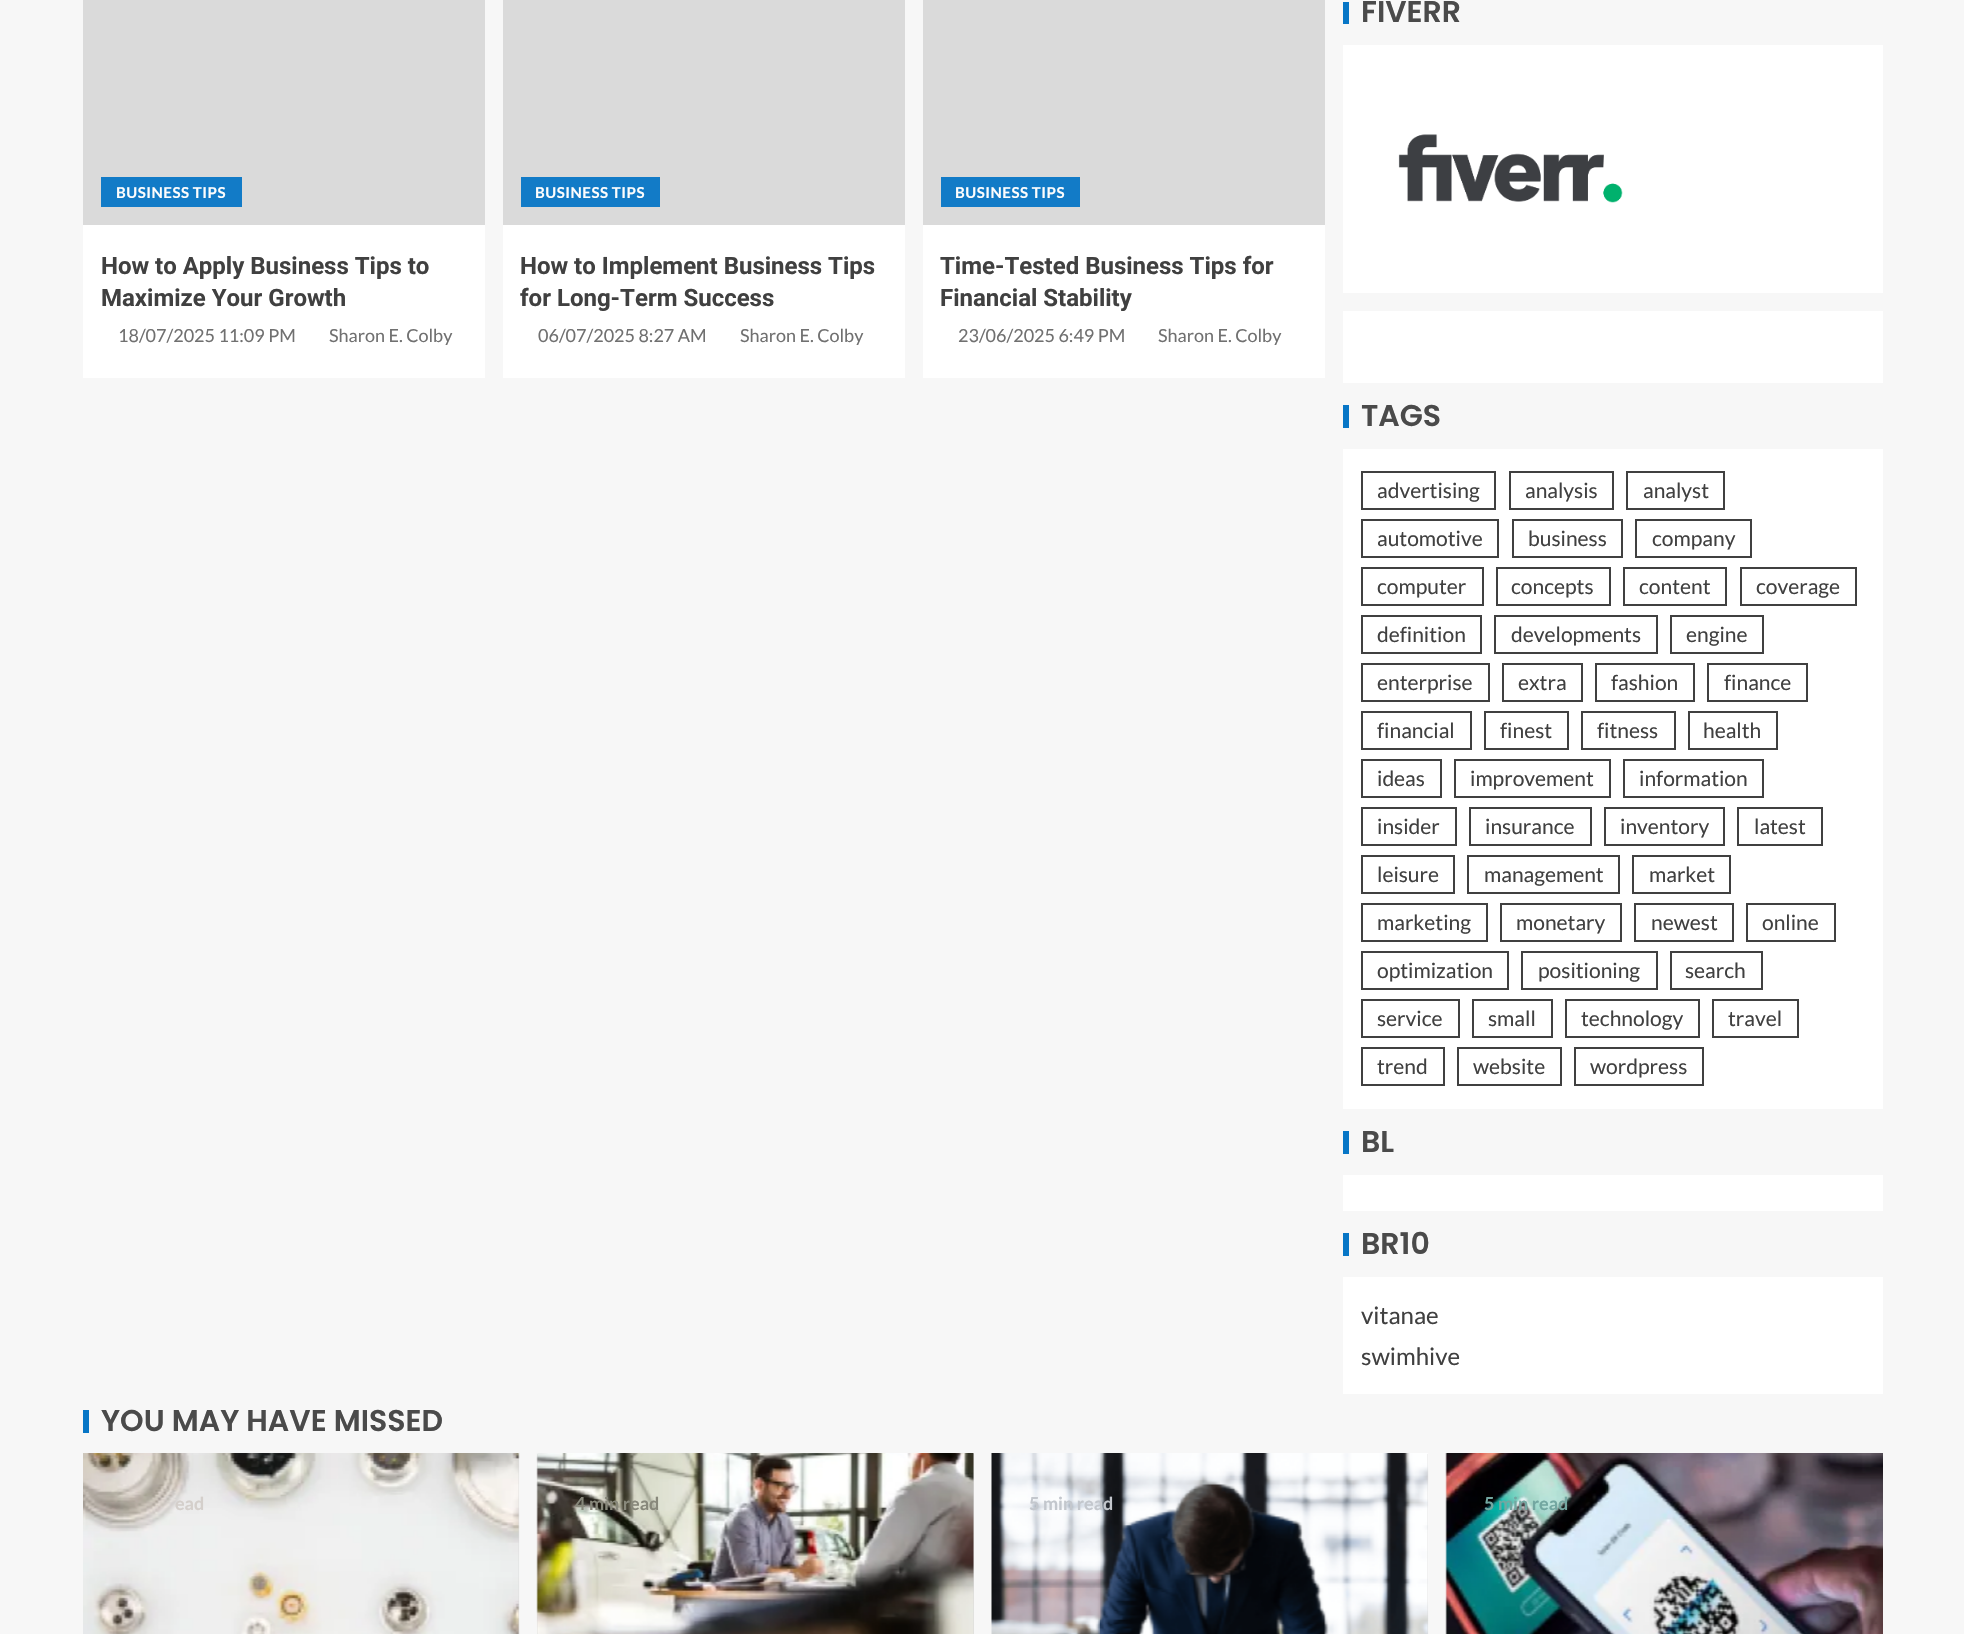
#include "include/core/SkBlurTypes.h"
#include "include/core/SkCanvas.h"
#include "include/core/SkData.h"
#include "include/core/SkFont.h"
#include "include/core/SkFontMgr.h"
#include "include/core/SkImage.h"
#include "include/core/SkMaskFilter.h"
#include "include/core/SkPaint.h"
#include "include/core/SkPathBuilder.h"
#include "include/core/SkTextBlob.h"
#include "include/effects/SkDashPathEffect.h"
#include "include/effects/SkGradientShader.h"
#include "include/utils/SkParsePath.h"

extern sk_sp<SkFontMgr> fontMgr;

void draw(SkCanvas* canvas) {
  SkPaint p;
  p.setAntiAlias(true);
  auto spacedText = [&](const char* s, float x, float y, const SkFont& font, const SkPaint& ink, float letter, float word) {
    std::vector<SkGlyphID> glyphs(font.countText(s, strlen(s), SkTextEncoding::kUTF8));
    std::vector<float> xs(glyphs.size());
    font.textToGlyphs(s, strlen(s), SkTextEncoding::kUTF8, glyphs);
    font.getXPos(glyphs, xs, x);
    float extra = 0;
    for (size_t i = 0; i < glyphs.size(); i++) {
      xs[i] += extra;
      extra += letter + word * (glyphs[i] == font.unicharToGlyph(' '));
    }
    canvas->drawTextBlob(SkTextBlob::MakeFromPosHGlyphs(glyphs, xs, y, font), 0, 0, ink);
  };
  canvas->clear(SkColorSetRGB(247, 247, 247));
  p.setColor(SkColorSetRGB(218, 218, 218));
  canvas->drawRect(SkRect::MakeLTRB(83, 0, 485, 225), p);
  p.setColor(SkColorSetRGB(18, 123, 199));
  canvas->drawRect(SkRect::MakeLTRB(101, 177, 242, 207), p);
  p.setColor(SK_ColorWHITE);
  canvas->drawRect(SkRect::MakeLTRB(83, 225, 485, 378), p);
  p.setColor(SkColorSetRGB(218, 218, 218));
  canvas->drawRect(SkRect::MakeLTRB(503, 0, 905, 225), p);
  p.setColor(SkColorSetRGB(18, 123, 199));
  canvas->drawRect(SkRect::MakeLTRB(521, 177, 660, 207), p);
  p.setColor(SK_ColorWHITE);
  canvas->drawRect(SkRect::MakeLTRB(503, 225, 905, 378), p);
  p.setColor(SkColorSetRGB(218, 218, 218));
  canvas->drawRect(SkRect::MakeLTRB(923, 0, 1325, 225), p);
  p.setColor(SkColorSetRGB(18, 123, 199));
  canvas->drawRect(SkRect::MakeLTRB(941, 177, 1080, 207), p);
  p.setColor(SK_ColorWHITE);
  canvas->drawRect(SkRect::MakeLTRB(923, 225, 1325, 378), p);
  p.setColor(SkColorSetRGB(7, 118, 198));
  canvas->drawRect(SkRect::MakeLTRB(1343, 2, 1349, 24), p);
  p.setColor(SK_ColorWHITE);
  canvas->drawRect(SkRect::MakeLTRB(1343, 45, 1883, 293), p);
  canvas->drawImageRect(SkImages::DeferredFromEncodedData(SkData::MakeFromFileName("images/1.png")), SkRect::MakeLTRB(1398, 134, 1623, 203), SkSamplingOptions());
  canvas->drawRect(SkRect::MakeLTRB(1343, 311, 1883, 383), p);
  p.setColor(SkColorSetRGB(7, 118, 198));
  canvas->drawRect(SkRect::MakeLTRB(1343, 405, 1349, 428), p);
  p.setColor(SK_ColorWHITE);
  canvas->drawRect(SkRect::MakeLTRB(1343, 449, 1883, 1109), p);
  p.setStyle(SkPaint::kStroke_Style);
  p.setStrokeWidth(2);
  p.setColor(SkColorSetRGB(64, 64, 64));
  canvas->drawRect(SkRect::MakeLTRB(1362, 472, 1495, 509), p);
  canvas->drawRect(SkRect::MakeLTRB(1510, 472, 1613, 509), p);
  canvas->drawRect(SkRect::MakeLTRB(1627, 472, 1724, 509), p);
  canvas->drawRect(SkRect::MakeLTRB(1362, 520, 1498, 557), p);
  canvas->drawRect(SkRect::MakeLTRB(1513, 520, 1622, 557), p);
  canvas->drawRect(SkRect::MakeLTRB(1636, 520, 1751, 557), p);
  canvas->drawRect(SkRect::MakeLTRB(1362, 568, 1483, 605), p);
  canvas->drawRect(SkRect::MakeLTRB(1497, 568, 1610, 605), p);
  canvas->drawRect(SkRect::MakeLTRB(1624, 568, 1726, 605), p);
  canvas->drawRect(SkRect::MakeLTRB(1741, 568, 1856, 605), p);
  canvas->drawRect(SkRect::MakeLTRB(1362, 616, 1481, 653), p);
  canvas->drawRect(SkRect::MakeLTRB(1495, 616, 1657, 653), p);
  canvas->drawRect(SkRect::MakeLTRB(1671, 616, 1763, 653), p);
  canvas->drawRect(SkRect::MakeLTRB(1362, 664, 1489, 701), p);
  canvas->drawRect(SkRect::MakeLTRB(1503, 664, 1582, 701), p);
  canvas->drawRect(SkRect::MakeLTRB(1596, 664, 1694, 701), p);
  canvas->drawRect(SkRect::MakeLTRB(1708, 664, 1807, 701), p);
  canvas->drawRect(SkRect::MakeLTRB(1362, 712, 1471, 749), p);
  canvas->drawRect(SkRect::MakeLTRB(1485, 712, 1568, 749), p);
  canvas->drawRect(SkRect::MakeLTRB(1582, 712, 1675, 749), p);
  canvas->drawRect(SkRect::MakeLTRB(1689, 712, 1777, 749), p);
  canvas->drawRect(SkRect::MakeLTRB(1362, 760, 1441, 797), p);
  canvas->drawRect(SkRect::MakeLTRB(1455, 760, 1610, 797), p);
  canvas->drawRect(SkRect::MakeLTRB(1624, 760, 1763, 797), p);
  canvas->drawRect(SkRect::MakeLTRB(1362, 808, 1456, 845), p);
  canvas->drawRect(SkRect::MakeLTRB(1470, 808, 1591, 845), p);
  canvas->drawRect(SkRect::MakeLTRB(1605, 808, 1724, 845), p);
  canvas->drawRect(SkRect::MakeLTRB(1738, 808, 1822, 845), p);
  canvas->drawRect(SkRect::MakeLTRB(1362, 856, 1454, 893), p);
  canvas->drawRect(SkRect::MakeLTRB(1468, 856, 1619, 893), p);
  canvas->drawRect(SkRect::MakeLTRB(1633, 856, 1730, 893), p);
  canvas->drawRect(SkRect::MakeLTRB(1362, 904, 1487, 941), p);
  canvas->drawRect(SkRect::MakeLTRB(1501, 904, 1621, 941), p);
  canvas->drawRect(SkRect::MakeLTRB(1635, 904, 1733, 941), p);
  canvas->drawRect(SkRect::MakeLTRB(1747, 904, 1835, 941), p);
  canvas->drawRect(SkRect::MakeLTRB(1362, 952, 1508, 989), p);
  canvas->drawRect(SkRect::MakeLTRB(1522, 952, 1657, 989), p);
  canvas->drawRect(SkRect::MakeLTRB(1671, 952, 1762, 989), p);
  canvas->drawRect(SkRect::MakeLTRB(1362, 1000, 1459, 1037), p);
  canvas->drawRect(SkRect::MakeLTRB(1473, 1000, 1552, 1037), p);
  canvas->drawRect(SkRect::MakeLTRB(1566, 1000, 1699, 1037), p);
  canvas->drawRect(SkRect::MakeLTRB(1713, 1000, 1798, 1037), p);
  canvas->drawRect(SkRect::MakeLTRB(1362, 1048, 1444, 1085), p);
  canvas->drawRect(SkRect::MakeLTRB(1458, 1048, 1561, 1085), p);
  canvas->drawRect(SkRect::MakeLTRB(1575, 1048, 1703, 1085), p);
  p.setStyle(SkPaint::kFill_Style);
  p.setColor(SkColorSetRGB(7, 118, 198));
  canvas->drawRect(SkRect::MakeLTRB(1343, 1131, 1349, 1154), p);
  p.setColor(SK_ColorWHITE);
  canvas->drawRect(SkRect::MakeLTRB(1343, 1175, 1883, 1211), p);
  p.setColor(SkColorSetRGB(7, 118, 198));
  canvas->drawRect(SkRect::MakeLTRB(1343, 1233, 1349, 1256), p);
  p.setColor(SK_ColorWHITE);
  canvas->drawRect(SkRect::MakeLTRB(1343, 1277, 1883, 1394), p);
  p.setColor(SkColorSetRGB(7, 118, 198));
  canvas->drawRect(SkRect::MakeLTRB(83, 1410, 89, 1433), p);
  p.setColor(SkColorSetRGB(218, 218, 218));
  canvas->drawRect(SkRect::MakeLTRB(518, 1454, 519, 1634), p);
  canvas->drawImageRect(SkImages::DeferredFromEncodedData(SkData::MakeFromFileName("images/2.png")), SkRect::MakeLTRB(83, 1453, 520, 1634), SkSamplingOptions());
  canvas->drawRect(SkRect::MakeLTRB(537, 1454, 974, 1634), p);
  canvas->drawImageRect(SkImages::DeferredFromEncodedData(SkData::MakeFromFileName("images/3.png")), SkRect::MakeLTRB(536, 1453, 974, 1634), SkSamplingOptions());
  canvas->drawRect(SkRect::MakeLTRB(1427, 1454, 1428, 1634), p);
  canvas->drawImageRect(SkImages::DeferredFromEncodedData(SkData::MakeFromFileName("images/4.png")), SkRect::MakeLTRB(991, 1453, 1429, 1634), SkSamplingOptions());
  canvas->drawRect(SkRect::MakeLTRB(1446, 1454, 1447, 1634), p);
  canvas->drawImageRect(SkImages::DeferredFromEncodedData(SkData::MakeFromFileName("images/5.png")), SkRect::MakeLTRB(1445, 1453, 1883, 1634), SkSamplingOptions());
  SkFont font1(fontMgr->matchFamilyStyle("Lato", SkFontStyle::Bold()), 15);
  font1.setSubpixel(true);
  p.setColor(SkColorSetRGB(253, 253, 253));
  spacedText("BUSINESS TIPS", 116, 198, font1, p, 0.5f, 0);
  SkFont font2(fontMgr->matchFamilyStyle("Roboto", SkFontStyle::Bold()), 24);
  font2.setSubpixel(true);
  p.setColor(SkColorSetRGB(64, 64, 64));
  canvas->drawString("How to Apply Business Tips to", 101, 274, font2, p);
  canvas->drawString("Maximize Your Growth", 101, 306, font2, p);
  SkFont font3(fontMgr->matchFamilyStyle("Lato", SkFontStyle::Normal()), 18);
  font3.setSubpixel(true);
  p.setColor(SkColorSetRGB(112, 112, 112));
  canvas->drawString("18/07/2025 11:09 PM", 118, 342, font3, p);
  canvas->drawString("Sharon E. Colby", 329, 342, font3, p);
  p.setColor(SkColorSetRGB(253, 253, 253));
  spacedText("BUSINESS TIPS", 535, 198, font1, p, 0.5f, 0);
  p.setColor(SkColorSetRGB(64, 64, 64));
  canvas->drawString("How to Implement Business Tips", 520, 274, font2, p);
  canvas->drawString("for Long-Term Success", 520, 306, font2, p);
  p.setColor(SkColorSetRGB(112, 112, 112));
  canvas->drawString("06/07/2025 8:27 AM", 538, 342, font3, p);
  canvas->drawString("Sharon E. Colby", 740, 342, font3, p);
  p.setColor(SkColorSetRGB(253, 253, 253));
  spacedText("BUSINESS TIPS", 955, 198, font1, p, 0.5f, 0);
  p.setColor(SkColorSetRGB(64, 64, 64));
  canvas->drawString("Time-Tested Business Tips for", 940, 274, font2, p);
  canvas->drawString("Financial Stability", 940, 306, font2, p);
  p.setColor(SkColorSetRGB(112, 112, 112));
  canvas->drawString("23/06/2025 6:49 PM", 958, 342, font3, p);
  canvas->drawString("Sharon E. Colby", 1158, 342, font3, p);
  SkFont font4(fontMgr->matchFamilyStyle("Poppins", SkFontStyle(600, SkFontStyle::kNormal_Width, SkFontStyle::kUpright_Slant)), 30);
  font4.setSubpixel(true);
  p.setColor(SkColorSetRGB(74, 74, 74));
  canvas->drawString("FIVERR", 1361, 22, font4, p);
  canvas->drawString("TAGS", 1361, 426, font4, p);
  SkFont font5(fontMgr->matchFamilyStyle("Lato", SkFontStyle::Normal()), 21);
  font5.setSubpixel(true);
  p.setColor(SkColorSetRGB(64, 64, 64));
  canvas->drawString("advertising", 1377, 498, font5, p);
  canvas->drawString("analysis", 1525, 498, font5, p);
  canvas->drawString("analyst", 1643, 498, font5, p);
  canvas->drawString("automotive", 1377, 546, font5, p);
  canvas->drawString("business", 1528, 546, font5, p);
  canvas->drawString("company", 1652, 546, font5, p);
  canvas->drawString("computer", 1377, 594, font5, p);
  canvas->drawString("concepts", 1511, 594, font5, p);
  canvas->drawString("content", 1639, 594, font5, p);
  canvas->drawString("coverage", 1756, 594, font5, p);
  canvas->drawString("definition", 1377, 642, font5, p);
  canvas->drawString("developments", 1511, 642, font5, p);
  canvas->drawString("engine", 1686, 642, font5, p);
  canvas->drawString("enterprise", 1377, 690, font5, p);
  canvas->drawString("extra", 1518, 690, font5, p);
  canvas->drawString("fashion", 1611, 690, font5, p);
  canvas->drawString("finance", 1724, 690, font5, p);
  canvas->drawString("financial", 1377, 738, font5, p);
  canvas->drawString("finest", 1500, 738, font5, p);
  canvas->drawString("fitness", 1597, 738, font5, p);
  canvas->drawString("health", 1703, 738, font5, p);
  canvas->drawString("ideas", 1377, 786, font5, p);
  canvas->drawString("improvement", 1470, 786, font5, p);
  canvas->drawString("information", 1639, 786, font5, p);
  canvas->drawString("insider", 1377, 834, font5, p);
  canvas->drawString("insurance", 1485, 834, font5, p);
  canvas->drawString("inventory", 1620, 834, font5, p);
  canvas->drawString("latest", 1754, 834, font5, p);
  canvas->drawString("leisure", 1377, 882, font5, p);
  canvas->drawString("management", 1484, 882, font5, p);
  canvas->drawString("market", 1649, 882, font5, p);
  canvas->drawString("marketing", 1377, 930, font5, p);
  canvas->drawString("monetary", 1516, 930, font5, p);
  canvas->drawString("newest", 1651, 930, font5, p);
  canvas->drawString("online", 1762, 930, font5, p);
  canvas->drawString("optimization", 1377, 978, font5, p);
  canvas->drawString("positioning", 1538, 978, font5, p);
  canvas->drawString("search", 1685, 978, font5, p);
  canvas->drawString("service", 1377, 1026, font5, p);
  canvas->drawString("small", 1488, 1026, font5, p);
  canvas->drawString("technology", 1581, 1026, font5, p);
  canvas->drawString("travel", 1728, 1026, font5, p);
  canvas->drawString("trend", 1377, 1074, font5, p);
  canvas->drawString("website", 1473, 1074, font5, p);
  canvas->drawString("wordpress", 1590, 1074, font5, p);
  p.setColor(SkColorSetRGB(74, 74, 74));
  canvas->drawString("BL", 1361, 1152, font4, p);
  canvas->drawString("BR10", 1361, 1254, font4, p);
  SkFont font6(fontMgr->matchFamilyStyle("Lato", SkFontStyle::Normal()), 24);
  font6.setSubpixel(true);
  p.setColor(SkColorSetRGB(64, 64, 64));
  canvas->drawString("vitanae", 1361, 1324, font6, p);
  canvas->drawString("swimhive", 1361, 1365, font6, p);
  p.setColor(SkColorSetRGB(74, 74, 74));
  canvas->drawString("YOU MAY HAVE MISSED", 101, 1431, font4, p);
  SkFont font7(fontMgr->matchFamilyStyle("Lato", SkFontStyle::Bold()), 18);
  font7.setSubpixel(true);
  p.setColor(SkColorSetRGB(212, 207, 203));
  canvas->drawString("ead", 175, 1510, font7, p);
  p.setColor(SkColorSetRGB(136, 136, 123));
  canvas->drawString("4 min read", 575, 1510, font7, p);
  p.setColor(SkColorSetRGB(195, 199, 205));
  canvas->drawString("5 min read", 1029, 1510, font7, p);
  p.setColor(SkColorSetRGB(115, 167, 161));
  canvas->drawString("5 min read", 1484, 1510, font7, p);
}
